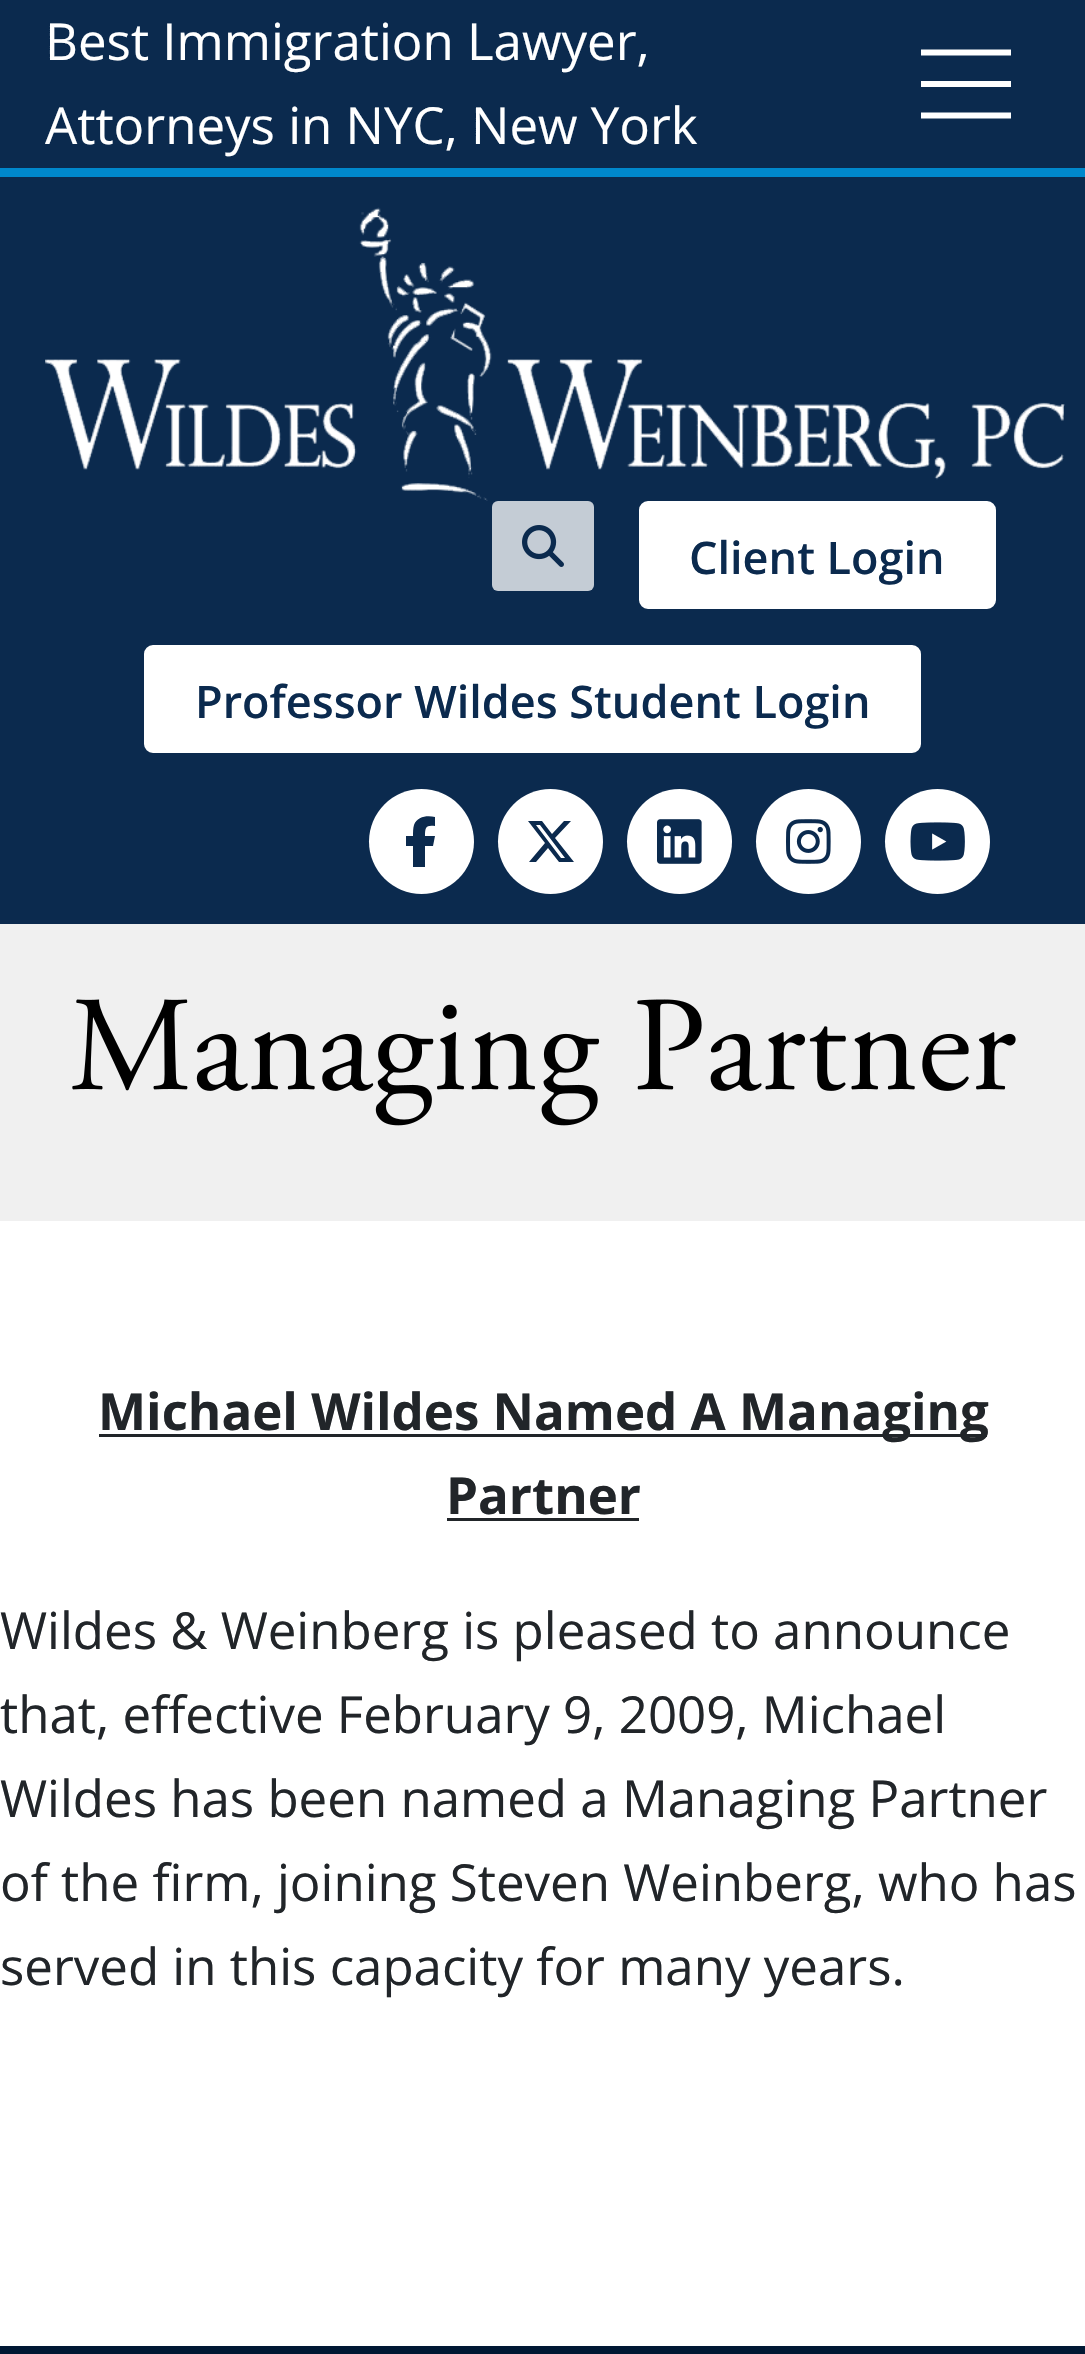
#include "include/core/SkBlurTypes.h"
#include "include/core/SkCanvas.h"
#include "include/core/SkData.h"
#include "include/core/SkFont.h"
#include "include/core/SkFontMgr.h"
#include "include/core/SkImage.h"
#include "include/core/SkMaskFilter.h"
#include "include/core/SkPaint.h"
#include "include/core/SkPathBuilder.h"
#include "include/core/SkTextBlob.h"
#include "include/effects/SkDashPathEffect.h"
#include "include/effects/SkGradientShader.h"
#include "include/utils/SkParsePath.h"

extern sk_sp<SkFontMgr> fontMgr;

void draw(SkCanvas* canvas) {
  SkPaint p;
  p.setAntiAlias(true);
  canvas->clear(SK_ColorWHITE);
  p.setColor(SkColorSetRGB(11, 42, 78));
  canvas->drawRect(SkRect::MakeLTRB(0, 0, 1085, 168), p);
  p.setStyle(SkPaint::kStroke_Style);
  p.setStrokeWidth(6);
  p.setColor(SK_ColorWHITE);
  canvas->drawPath(SkPathBuilder().moveTo(921, 52.5f).lineTo(1011, 52.5f).detach(), p);
  p.setStyle(SkPaint::kFill_Style);
  canvas->drawRect(SkRect::MakeLTRB(921, 81, 1011, 87), p);
  p.setStyle(SkPaint::kStroke_Style);
  canvas->drawPath(SkPathBuilder().moveTo(921, 115.5f).lineTo(1011, 115.5f).detach(), p);
  p.setStyle(SkPaint::kFill_Style);
  p.setColor(SkColorSetRGB(11, 42, 78));
  canvas->drawRect(SkRect::MakeLTRB(0, 177, 1085, 924), p);
  p.setColor(SkColorSetRGB(0, 136, 204));
  canvas->drawRect(SkRect::MakeLTRB(0, 168, 1085, 177), p);
  canvas->drawImageRect(SkImages::DeferredFromEncodedData(SkData::MakeFromFileName("images/1.png")), SkRect::MakeLTRB(45, 207, 1065, 501), SkSamplingOptions());
  p.setColor(SkColorSetRGB(196, 204, 213));
  canvas->drawRoundRect(SkRect::MakeLTRB(492, 501, 594, 591), 6, 6, p);
  canvas->drawImageRect(SkImages::DeferredFromEncodedData(SkData::MakeFromFileName("images/2.png")), SkRect::MakeLTRB(522, 525, 564, 567), SkSamplingOptions());
  p.setColor(SK_ColorWHITE);
  canvas->drawRoundRect(SkRect::MakeLTRB(642, 504, 993, 606), 6, 6, p);
  p.setStyle(SkPaint::kStroke_Style);
  canvas->drawRoundRect(SkRect::MakeLTRB(642, 504, 993, 606), 6, 6, p);
  p.setStyle(SkPaint::kFill_Style);
  canvas->drawRoundRect(SkRect::MakeLTRB(147, 648, 918, 750), 6, 6, p);
  p.setStyle(SkPaint::kStroke_Style);
  canvas->drawRoundRect(SkRect::MakeLTRB(147, 648, 918, 750), 6, 6, p);
  p.setStyle(SkPaint::kFill_Style);
  canvas->drawCircle(421.5f, 841.5f, 52.5f, p);
  p.setColor(SkColorSetRGB(11, 42, 78));
  canvas->drawPath(SkPathBuilder().moveTo(413, 846).lineTo(413, 867).lineTo(425, 867).lineTo(425, 846).lineTo(433, 846).lineTo(435, 836).lineTo(425, 836).cubicTo(425, 827, 426, 825, 435, 826).lineTo(435, 817).cubicTo(428, 815, 417, 816, 414, 825).cubicTo(413, 828, 413, 832, 413, 836).lineTo(406, 836).lineTo(406, 846).close().detach(), p);
  p.setColor(SK_ColorWHITE);
  canvas->drawCircle(550.5f, 841.5f, 52.5f, p);
  p.setColor(SkColorSetRGB(11, 42, 78));
  canvas->drawPath(SkPathBuilder().moveTo(564, 821).lineTo(571, 821).lineTo(555, 838).lineTo(574, 862).lineTo(559, 862).lineTo(548, 848).lineTo(536, 862).lineTo(529, 862).lineTo(545, 843).lineTo(528, 821).lineTo(542, 821).lineTo(552, 834).close().moveTo(561, 858).lineTo(565, 858).lineTo(540, 825).lineTo(536, 825).close().detach(), p);
  p.setColor(SK_ColorWHITE);
  canvas->drawCircle(679.5f, 841.5f, 52.5f, p);
  canvas->drawImageRect(SkImages::DeferredFromEncodedData(SkData::MakeFromFileName("images/3.png")), SkRect::MakeLTRB(657, 819, 702, 864), SkSamplingOptions());
  canvas->drawCircle(808.5f, 841.5f, 52.5f, p);
  canvas->drawImageRect(SkImages::DeferredFromEncodedData(SkData::MakeFromFileName("images/4.png")), SkRect::MakeLTRB(786, 819, 831, 864), SkSamplingOptions());
  canvas->drawCircle(937.5f, 841.5f, 52.5f, p);
  canvas->drawImageRect(SkImages::DeferredFromEncodedData(SkData::MakeFromFileName("images/5.png")), SkRect::MakeLTRB(910, 822, 965, 861), SkSamplingOptions());
  p.setColor(SkColorSetRGB(240, 240, 240));
  canvas->drawRect(SkRect::MakeLTRB(0, 924, 1085, 1221), p);
  canvas->drawImageRect(SkImages::DeferredFromEncodedData(SkData::MakeFromFileName("images/6.png")), SkRect::MakeLTRB(72, 999, 1016, 1126), SkSamplingOptions());
  p.setColor(SkColorSetRGB(33, 37, 41));
  canvas->drawRect(SkRect::MakeLTRB(99, 1434, 987, 1437), p);
  canvas->drawRect(SkRect::MakeLTRB(447, 1518, 639, 1521), p);
  p.setColor(SkColorSetRGB(0, 24, 51));
  canvas->drawRect(SkRect::MakeLTRB(0, 2346, 1085, 2354), p);
  SkFont font1(fontMgr->matchFamilyStyle("Open Sans", SkFontStyle::Normal()), 51);
  font1.setSubpixel(true);
  p.setColor(SK_ColorWHITE);
  canvas->drawString("Best Immigration Lawyer,", 45, 60, font1, p);
  canvas->drawString("Attorneys in NYC, New York", 45, 144, font1, p);
  SkFont font2(fontMgr->matchFamilyStyle("Open Sans", SkFontStyle(600, SkFontStyle::kNormal_Width, SkFontStyle::kUpright_Slant)), 45);
  font2.setSubpixel(true);
  p.setColor(SkColorSetRGB(11, 42, 78));
  canvas->drawString("Client Login", 689, 574, font2, p);
  canvas->drawString("Professor Wildes Student Login", 195, 718, font2, p);
  SkFont font3(fontMgr->matchFamilyStyle("Open Sans", SkFontStyle::Bold()), 51);
  font3.setSubpixel(true);
  p.setColor(SkColorSetRGB(33, 37, 41));
  canvas->drawString("Michael Wildes Named A Managing", 98, 1430, font3, p);
  canvas->drawString("Partner", 446, 1514, font3, p);
  canvas->drawString("Wildes & Weinberg is pleased to announce", 0, 1649, font1, p);
  canvas->drawString("that, effective February 9, 2009, Michael", 0, 1733, font1, p);
  canvas->drawString("Wildes has been named a Managing Partner", 0, 1817, font1, p);
  canvas->drawString("of the firm, joining Steven Weinberg, who has", 0, 1901, font1, p);
  canvas->drawString("served in this capacity for many years.", 0, 1985, font1, p);
}
